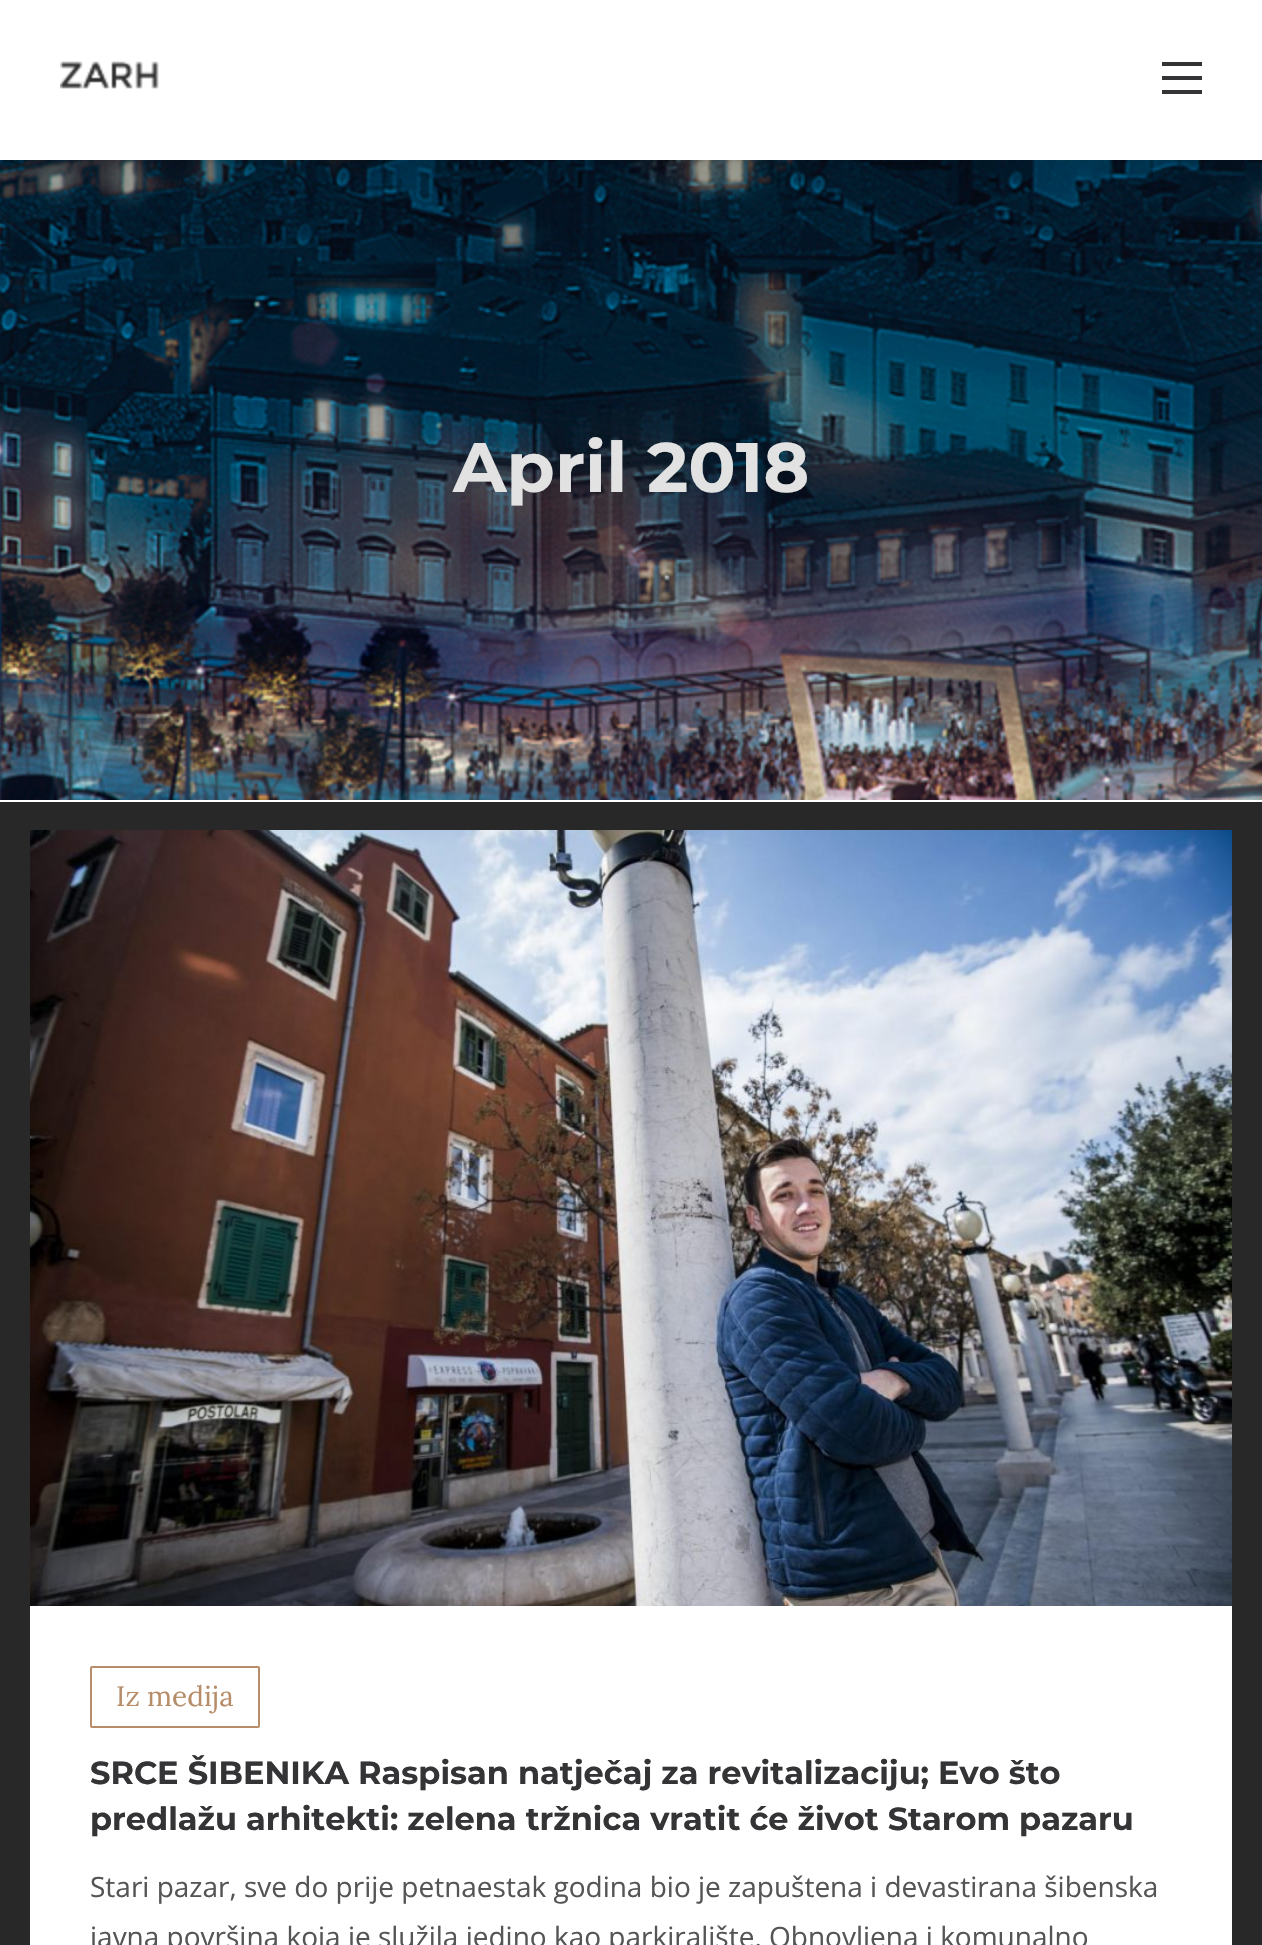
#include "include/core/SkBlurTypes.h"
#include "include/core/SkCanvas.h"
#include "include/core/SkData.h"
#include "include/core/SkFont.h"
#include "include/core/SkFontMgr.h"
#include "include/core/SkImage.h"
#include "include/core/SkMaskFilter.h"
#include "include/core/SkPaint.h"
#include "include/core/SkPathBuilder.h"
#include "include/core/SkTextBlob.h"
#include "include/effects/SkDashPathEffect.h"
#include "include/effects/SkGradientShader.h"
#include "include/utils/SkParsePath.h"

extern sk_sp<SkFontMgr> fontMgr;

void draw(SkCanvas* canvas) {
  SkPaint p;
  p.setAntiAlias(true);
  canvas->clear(SK_ColorWHITE);
  canvas->drawImageRect(SkImages::DeferredFromEncodedData(SkData::MakeFromFileName("images/2.png")), SkRect::MakeLTRB(0, 160, 1262, 800), SkSamplingOptions());
  p.setColor(SkColorSetARGB(26, 0, 0, 0));
  p.setMaskFilter(SkMaskFilter::MakeBlur(kNormal_SkBlurStyle, 8));
  canvas->drawRect(SkRect::MakeLTRB(0, 2, 1262, 162), p);
  p.setMaskFilter(nullptr);
  p.setColor(SK_ColorWHITE);
  canvas->drawRect(SkRect::MakeLTRB(0, 0, 1262, 160), p);
  canvas->drawImageRect(SkImages::DeferredFromEncodedData(SkData::MakeFromFileName("images/1.png")), SkRect::MakeLTRB(60, 61, 159, 89), SkSamplingOptions());
  p.setColor(SkColorSetRGB(52, 52, 54));
  canvas->drawRect(SkRect::MakeLTRB(1162, 76, 1202, 80), p);
  canvas->drawRect(SkRect::MakeLTRB(1162, 62, 1202, 66), p);
  canvas->drawRect(SkRect::MakeLTRB(1162, 90, 1202, 94), p);
  p.setColor(SkColorSetRGB(40, 40, 40));
  canvas->drawRect(SkRect::MakeLTRB(0, 802, 1262, 1945), p);
  p.setColor(SK_ColorWHITE);
  canvas->drawRect(SkRect::MakeLTRB(30, 1606, 1232, 1945), p);
  canvas->drawImageRect(SkImages::DeferredFromEncodedData(SkData::MakeFromFileName("images/3.png")), SkRect::MakeLTRB(30, 830, 1232, 1606), SkSamplingOptions());
  p.setStyle(SkPaint::kStroke_Style);
  p.setStrokeWidth(2);
  p.setColor(SkColorSetRGB(183, 141, 105));
  canvas->drawRoundRect(SkRect::MakeLTRB(91, 1667, 259, 1727), 1, 1, p);
  SkFont font1(fontMgr->matchFamilyStyle("Montserrat", SkFontStyle(100, SkFontStyle::kNormal_Width, SkFontStyle::kUpright_Slant)), 70);
  font1.setSubpixel(true);
  p.setStyle(SkPaint::kFill_Style);
  p.setColor(SkColorSetRGB(226, 226, 226));
  canvas->drawString("April 2018", 453, 492, font1, p);
  SkFont font2(fontMgr->matchFamilyStyle("Lora", SkFontStyle::Normal()), 28);
  font2.setSubpixel(true);
  p.setColor(SkColorSetRGB(183, 141, 105));
  canvas->drawString("Iz medija", 116, 1706, font2, p);
  SkFont font3(fontMgr->matchFamilyStyle("Montserrat", SkFontStyle(100, SkFontStyle::kNormal_Width, SkFontStyle::kUpright_Slant)), 32);
  font3.setSubpixel(true);
  p.setColor(SkColorSetRGB(52, 52, 54));
  canvas->drawString("SRCE ŠIBENIKA Raspisan natječaj za revitalizaciju; Evo što", 90, 1784, font3, p);
  canvas->drawString("predlažu arhitekti: zelena tržnica vratit će život Starom pazaru", 90, 1830, font3, p);
  SkFont font4(fontMgr->matchFamilyStyle("Open Sans", SkFontStyle::Normal()), 28);
  font4.setSubpixel(true);
  p.setColor(SkColorSetRGB(85, 85, 85));
  canvas->drawString("Stari pazar, sve do prije petnaestak godina bio je zapuštena i devastirana šibenska", 90, 1897, font4, p);
  canvas->drawString("javna površina koja je služila jedino kao parkiralište. Obnovljena i komunalno", 90, 1947, font4, p);
}
